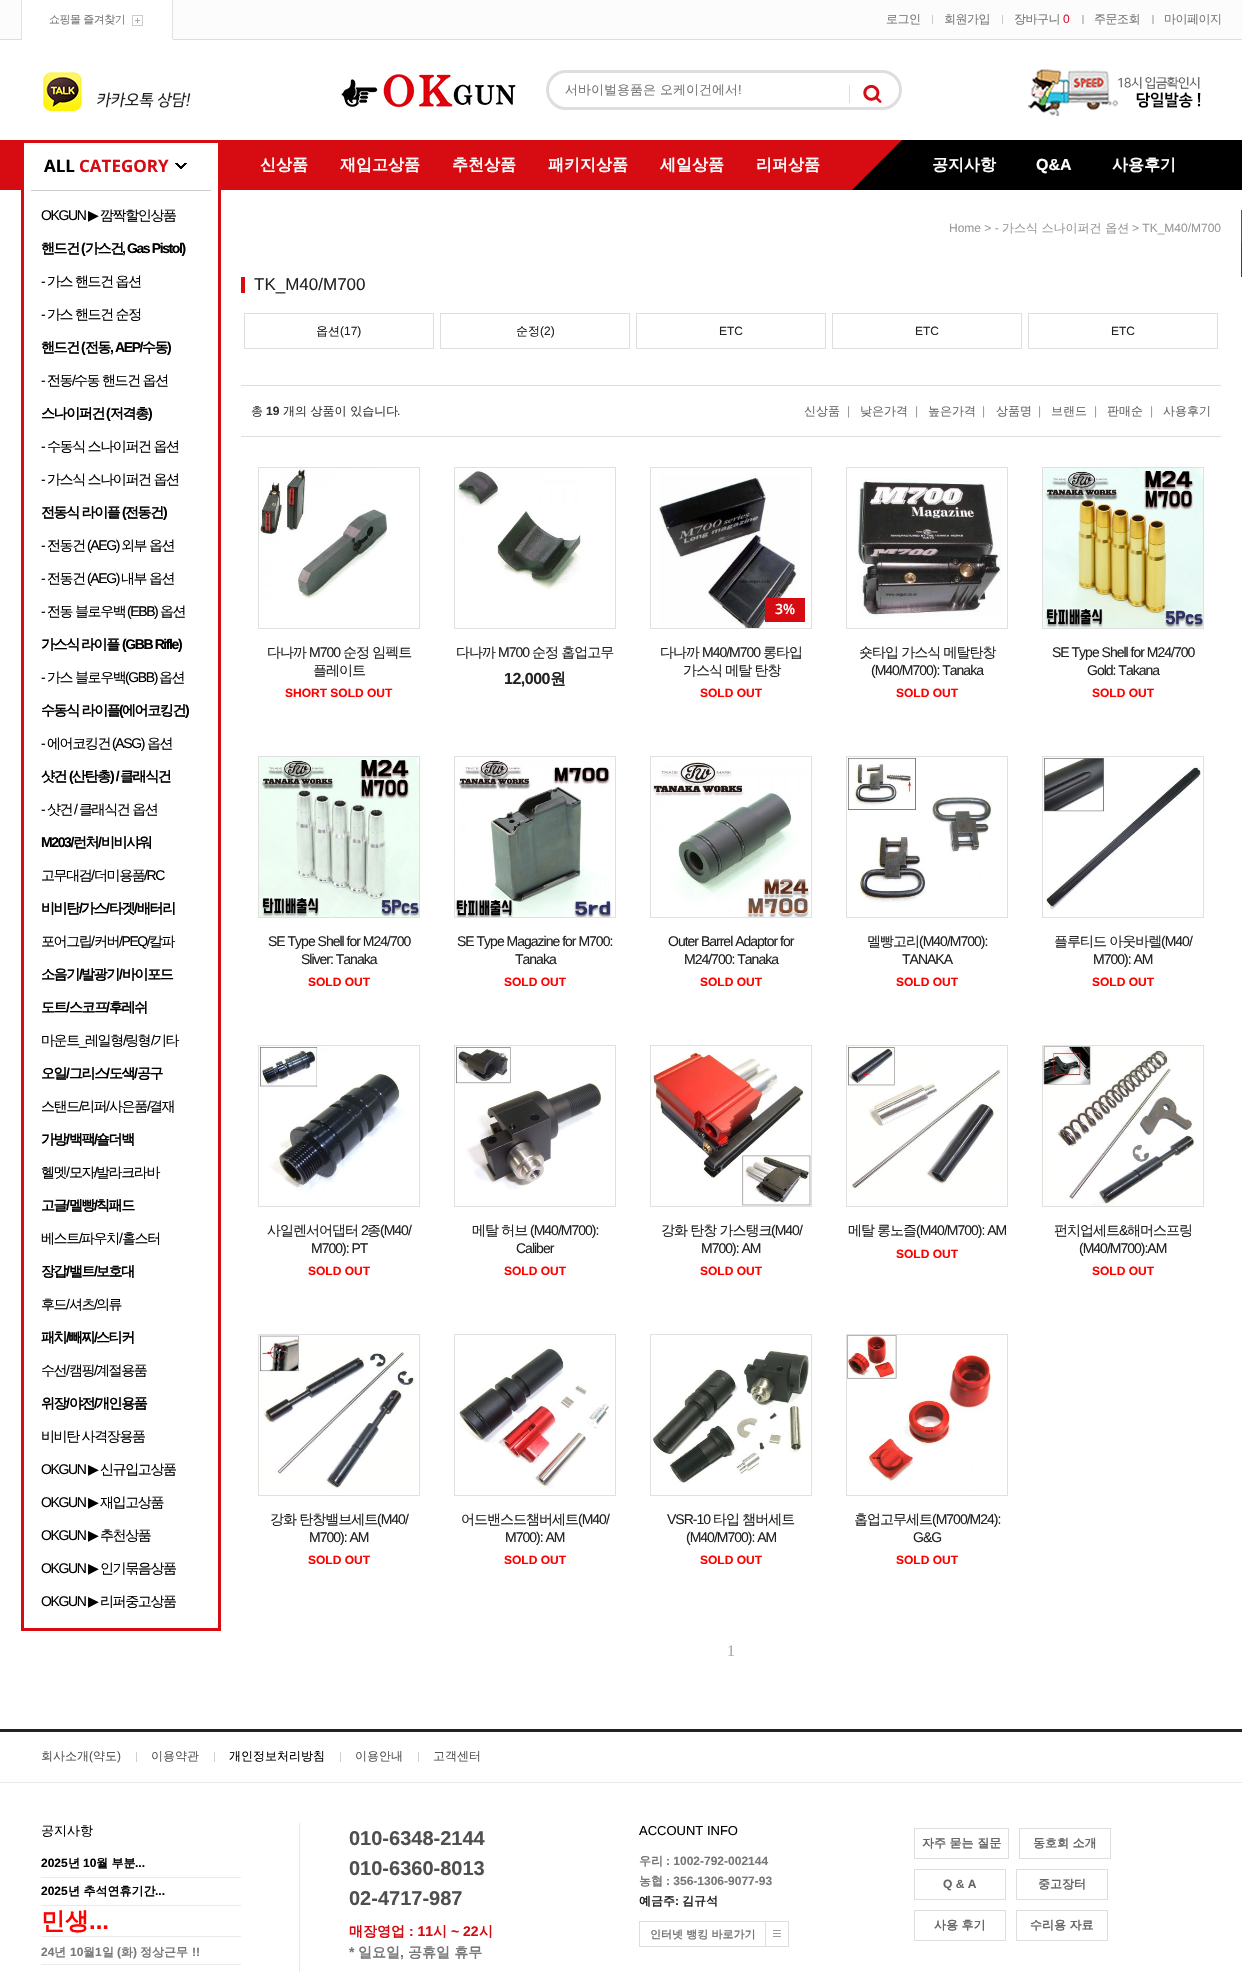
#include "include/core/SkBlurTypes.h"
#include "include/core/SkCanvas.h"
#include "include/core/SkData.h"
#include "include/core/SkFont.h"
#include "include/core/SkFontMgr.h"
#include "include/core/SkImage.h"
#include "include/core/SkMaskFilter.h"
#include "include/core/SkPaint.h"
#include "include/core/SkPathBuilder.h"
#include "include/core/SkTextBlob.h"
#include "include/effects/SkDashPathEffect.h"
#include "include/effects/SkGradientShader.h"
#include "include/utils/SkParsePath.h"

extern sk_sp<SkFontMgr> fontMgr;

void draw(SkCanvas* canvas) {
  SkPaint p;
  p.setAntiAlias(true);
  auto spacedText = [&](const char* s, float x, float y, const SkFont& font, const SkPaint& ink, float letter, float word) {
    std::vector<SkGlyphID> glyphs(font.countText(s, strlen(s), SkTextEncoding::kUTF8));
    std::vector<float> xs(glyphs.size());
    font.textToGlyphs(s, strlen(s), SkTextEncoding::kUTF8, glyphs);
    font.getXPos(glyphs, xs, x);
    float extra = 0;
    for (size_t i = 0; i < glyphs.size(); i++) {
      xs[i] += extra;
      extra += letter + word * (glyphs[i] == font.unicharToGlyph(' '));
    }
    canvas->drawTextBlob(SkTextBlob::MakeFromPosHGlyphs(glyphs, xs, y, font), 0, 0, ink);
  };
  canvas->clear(SK_ColorWHITE);
  p.setColor(SkColorSetRGB(252, 252, 252));
  canvas->drawRect(SkRect::MakeLTRB(0, 0, 1242, 39), p);
  p.setColor(SkColorSetRGB(222, 222, 222));
  canvas->drawRect(SkRect::MakeLTRB(0, 39, 1242, 40), p);
  p.setColor(SK_ColorWHITE);
  canvas->drawRect(SkRect::MakeLTRB(22, 0, 172, 39), p);
  canvas->drawImageRect(SkImages::DeferredFromEncodedData(SkData::MakeFromFileName("images/1.png")), SkRect::MakeLTRB(132, 15, 143, 26), SkSamplingOptions());
  p.setColor(SkColorSetRGB(226, 226, 226));
  canvas->drawRect(SkRect::MakeLTRB(172, 0, 173, 40), p);
  p.setColor(SK_ColorWHITE);
  canvas->drawRect(SkRect::MakeLTRB(21, 39, 173, 40), p);
  p.setColor(SkColorSetRGB(226, 226, 226));
  canvas->drawRect(SkRect::MakeLTRB(21, 0, 22, 40), p);
  p.setColor(SkColorSetRGB(201, 201, 201));
  canvas->drawRect(SkRect::MakeLTRB(932, 15, 933, 24), p);
  canvas->drawRect(SkRect::MakeLTRB(1002, 15, 1003, 24), p);
  canvas->drawRect(SkRect::MakeLTRB(1082, 15, 1084, 24), p);
  canvas->drawRect(SkRect::MakeLTRB(1152, 15, 1154, 24), p);
  canvas->drawImageRect(SkImages::DeferredFromEncodedData(SkData::MakeFromFileName("images/2.png")), SkRect::MakeLTRB(40, 72, 191, 113), SkSamplingOptions());
  canvas->drawImageRect(SkImages::DeferredFromEncodedData(SkData::MakeFromFileName("images/3.png")), SkRect::MakeLTRB(341, 74, 516, 108), SkSamplingOptions());
  p.setStyle(SkPaint::kStroke_Style);
  p.setStrokeWidth(3);
  p.setColor(SkColorSetRGB(222, 222, 222));
  canvas->drawRoundRect(SkRect::MakeLTRB(547.5f, 71.5f, 900.5f, 108.5f), 18.5f, 18.5f, p);
  canvas->drawImageRect(SkImages::DeferredFromEncodedData(SkData::MakeFromFileName("images/4.png")), SkRect::MakeLTRB(849, 85, 882, 103), SkSamplingOptions());
  canvas->drawImageRect(SkImages::DeferredFromEncodedData(SkData::MakeFromFileName("images/5.png")), SkRect::MakeLTRB(1028, 69, 1201, 116), SkSamplingOptions());
  p.setStyle(SkPaint::kFill_Style);
  p.setColor(SkColorSetRGB(215, 12, 18));
  canvas->drawRect(SkRect::MakeLTRB(0, 140, 21, 190), p);
  p.setColor(SK_ColorBLACK);
  canvas->drawRect(SkRect::MakeLTRB(902, 140, 1242, 190), p);
  canvas->drawImageRect(SkImages::DeferredFromEncodedData(SkData::MakeFromFileName("images/6.png")), SkRect::MakeLTRB(175, 163, 187, 169), SkSamplingOptions());
  p.setStyle(SkPaint::kStroke_Style);
  p.setColor(SkColorSetRGB(215, 12, 18));
  canvas->drawRect(SkRect::MakeLTRB(22.5f, 141.5f, 219.5f, 194.5f), p);
  p.setStyle(SkPaint::kFill_Style);
  canvas->drawRect(SkRect::MakeLTRB(221, 140, 851, 190), p);
  canvas->drawImageRect(SkImages::DeferredFromEncodedData(SkData::MakeFromFileName("images/7.png")), SkRect::MakeLTRB(851, 140, 902, 190), SkSamplingOptions());
  p.setColor(SK_ColorWHITE);
  canvas->drawRect(SkRect::MakeLTRB(21, 190, 221, 196), p);
  p.setColor(SkColorSetRGB(215, 12, 18));
  canvas->drawRect(SkRect::MakeLTRB(218, 190, 221, 1631), p);
  canvas->drawRect(SkRect::MakeLTRB(21, 1628, 221, 1631), p);
  canvas->drawRect(SkRect::MakeLTRB(21, 190, 24, 1631), p);
  p.setColor(SkColorSetRGB(204, 204, 204));
  canvas->drawRect(SkRect::MakeLTRB(31, 190, 211, 191), p);
  p.setColor(SkColorSetRGB(215, 12, 18));
  canvas->drawRect(SkRect::MakeLTRB(241, 277, 245, 293), p);
  p.setStyle(SkPaint::kStroke_Style);
  p.setStrokeWidth(1);
  p.setColor(SkColorSetRGB(222, 222, 222));
  canvas->drawRect(SkRect::MakeLTRB(244.5f, 313.5f, 433.5f, 348.5f), p);
  canvas->drawRect(SkRect::MakeLTRB(440.5f, 313.5f, 629.5f, 348.5f), p);
  canvas->drawRect(SkRect::MakeLTRB(636.5f, 313.5f, 825.5f, 348.5f), p);
  canvas->drawRect(SkRect::MakeLTRB(832.5f, 313.5f, 1021.5f, 348.5f), p);
  canvas->drawRect(SkRect::MakeLTRB(1028.5f, 313.5f, 1217.5f, 348.5f), p);
  p.setStyle(SkPaint::kFill_Style);
  canvas->drawRect(SkRect::MakeLTRB(241, 385, 1221, 386), p);
  canvas->drawRect(SkRect::MakeLTRB(241, 436, 1221, 437), p);
  p.setStyle(SkPaint::kStroke_Style);
  p.setColor(SkColorSetRGB(224, 224, 224));
  canvas->drawRect(SkRect::MakeLTRB(258.5f, 467.5f, 419.5f, 628.5f), p);
  canvas->drawImageRect(SkImages::DeferredFromEncodedData(SkData::MakeFromFileName("images/8.png")), SkRect::MakeLTRB(259, 468, 387, 599), SkSamplingOptions());
  canvas->drawRect(SkRect::MakeLTRB(454.5f, 467.5f, 615.5f, 628.5f), p);
  canvas->drawImageRect(SkImages::DeferredFromEncodedData(SkData::MakeFromFileName("images/9.png")), SkRect::MakeLTRB(455, 470, 582, 590), SkSamplingOptions());
  canvas->drawRect(SkRect::MakeLTRB(650.5f, 467.5f, 811.5f, 628.5f), p);
  canvas->drawImageRect(SkImages::DeferredFromEncodedData(SkData::MakeFromFileName("images/10.png")), SkRect::MakeLTRB(658, 474, 800, 628), SkSamplingOptions());
  p.setStyle(SkPaint::kFill_Style);
  p.setColor(SkColorSetRGB(215, 12, 18));
  canvas->drawRect(SkRect::MakeLTRB(765, 598, 805, 622), p);
  p.setStyle(SkPaint::kStroke_Style);
  p.setColor(SkColorSetRGB(224, 224, 224));
  canvas->drawRect(SkRect::MakeLTRB(846.5f, 467.5f, 1007.5f, 628.5f), p);
  canvas->drawImageRect(SkImages::DeferredFromEncodedData(SkData::MakeFromFileName("images/11.png")), SkRect::MakeLTRB(857, 479, 1002, 617), SkSamplingOptions());
  canvas->drawRect(SkRect::MakeLTRB(1042.5f, 467.5f, 1203.5f, 628.5f), p);
  canvas->drawImageRect(SkImages::DeferredFromEncodedData(SkData::MakeFromFileName("images/12.png")), SkRect::MakeLTRB(1043, 468, 1203, 628), SkSamplingOptions());
  canvas->drawRect(SkRect::MakeLTRB(258.5f, 756.5f, 419.5f, 917.5f), p);
  canvas->drawImageRect(SkImages::DeferredFromEncodedData(SkData::MakeFromFileName("images/13.png")), SkRect::MakeLTRB(259, 757, 419, 917), SkSamplingOptions());
  canvas->drawRect(SkRect::MakeLTRB(454.5f, 756.5f, 615.5f, 917.5f), p);
  canvas->drawImageRect(SkImages::DeferredFromEncodedData(SkData::MakeFromFileName("images/14.png")), SkRect::MakeLTRB(455, 760, 613, 917), SkSamplingOptions());
  canvas->drawRect(SkRect::MakeLTRB(650.5f, 756.5f, 811.5f, 917.5f), p);
  canvas->drawImageRect(SkImages::DeferredFromEncodedData(SkData::MakeFromFileName("images/15.png")), SkRect::MakeLTRB(651, 762, 811, 917), SkSamplingOptions());
  canvas->drawRect(SkRect::MakeLTRB(846.5f, 756.5f, 1007.5f, 917.5f), p);
  canvas->drawImageRect(SkImages::DeferredFromEncodedData(SkData::MakeFromFileName("images/16.png")), SkRect::MakeLTRB(847, 757, 992, 903), SkSamplingOptions());
  canvas->drawRect(SkRect::MakeLTRB(1042.5f, 756.5f, 1203.5f, 917.5f), p);
  canvas->drawImageRect(SkImages::DeferredFromEncodedData(SkData::MakeFromFileName("images/17.png")), SkRect::MakeLTRB(1043, 757, 1201, 911), SkSamplingOptions());
  canvas->drawRect(SkRect::MakeLTRB(258.5f, 1045.5f, 419.5f, 1206.5f), p);
  canvas->drawImageRect(SkImages::DeferredFromEncodedData(SkData::MakeFromFileName("images/18.png")), SkRect::MakeLTRB(259, 1046, 405, 1195), SkSamplingOptions());
  canvas->drawRect(SkRect::MakeLTRB(454.5f, 1045.5f, 615.5f, 1206.5f), p);
  canvas->drawImageRect(SkImages::DeferredFromEncodedData(SkData::MakeFromFileName("images/19.png")), SkRect::MakeLTRB(455, 1046, 603, 1190), SkSamplingOptions());
  canvas->drawRect(SkRect::MakeLTRB(650.5f, 1045.5f, 811.5f, 1206.5f), p);
  canvas->drawImageRect(SkImages::DeferredFromEncodedData(SkData::MakeFromFileName("images/20.png")), SkRect::MakeLTRB(651, 1046, 811, 1206), SkSamplingOptions());
  canvas->drawRect(SkRect::MakeLTRB(846.5f, 1045.5f, 1007.5f, 1206.5f), p);
  canvas->drawImageRect(SkImages::DeferredFromEncodedData(SkData::MakeFromFileName("images/21.png")), SkRect::MakeLTRB(847, 1046, 1001, 1191), SkSamplingOptions());
  canvas->drawRect(SkRect::MakeLTRB(1042.5f, 1045.5f, 1203.5f, 1206.5f), p);
  canvas->drawImageRect(SkImages::DeferredFromEncodedData(SkData::MakeFromFileName("images/22.png")), SkRect::MakeLTRB(1043, 1046, 1197, 1206), SkSamplingOptions());
  canvas->drawRect(SkRect::MakeLTRB(258.5f, 1334.5f, 419.5f, 1495.5f), p);
  canvas->drawImageRect(SkImages::DeferredFromEncodedData(SkData::MakeFromFileName("images/23.png")), SkRect::MakeLTRB(259, 1335, 416, 1489), SkSamplingOptions());
  canvas->drawRect(SkRect::MakeLTRB(454.5f, 1334.5f, 615.5f, 1495.5f), p);
  canvas->drawImageRect(SkImages::DeferredFromEncodedData(SkData::MakeFromFileName("images/24.png")), SkRect::MakeLTRB(457, 1346, 609, 1489), SkSamplingOptions());
  canvas->drawRect(SkRect::MakeLTRB(650.5f, 1334.5f, 811.5f, 1495.5f), p);
  canvas->drawImageRect(SkImages::DeferredFromEncodedData(SkData::MakeFromFileName("images/25.png")), SkRect::MakeLTRB(651, 1349, 809, 1484), SkSamplingOptions());
  canvas->drawRect(SkRect::MakeLTRB(846.5f, 1334.5f, 1007.5f, 1495.5f), p);
  canvas->drawImageRect(SkImages::DeferredFromEncodedData(SkData::MakeFromFileName("images/26.png")), SkRect::MakeLTRB(847, 1335, 992, 1491), SkSamplingOptions());
  p.setStyle(SkPaint::kFill_Style);
  p.setColor(SkColorSetRGB(34, 34, 34));
  canvas->drawRect(SkRect::MakeLTRB(0, 1729, 1242, 1732), p);
  p.setColor(SkColorSetRGB(233, 233, 233));
  canvas->drawRect(SkRect::MakeLTRB(0, 1782, 1242, 1783), p);
  canvas->drawImageRect(SkImages::DeferredFromEncodedData(SkData::MakeFromFileName("images/27.png")), SkRect::MakeLTRB(136, 1752, 137, 1762), SkSamplingOptions());
  canvas->drawImageRect(SkImages::DeferredFromEncodedData(SkData::MakeFromFileName("images/27.png")), SkRect::MakeLTRB(214, 1752, 215, 1762), SkSamplingOptions());
  canvas->drawImageRect(SkImages::DeferredFromEncodedData(SkData::MakeFromFileName("images/27.png")), SkRect::MakeLTRB(340, 1752, 341, 1762), SkSamplingOptions());
  canvas->drawImageRect(SkImages::DeferredFromEncodedData(SkData::MakeFromFileName("images/27.png")), SkRect::MakeLTRB(418, 1752, 419, 1762), SkSamplingOptions());
  canvas->drawRect(SkRect::MakeLTRB(299, 1823, 300, 1972), p);
  p.setColor(SkColorSetRGB(234, 234, 234));
  canvas->drawRect(SkRect::MakeLTRB(41, 1877, 241, 1878), p);
  canvas->drawRect(SkRect::MakeLTRB(41, 1905, 241, 1906), p);
  canvas->drawRect(SkRect::MakeLTRB(41, 1936, 241, 1937), p);
  canvas->drawRect(SkRect::MakeLTRB(41, 1964, 241, 1965), p);
  p.setColor(SkColorSetRGB(222, 222, 222));
  canvas->drawRect(SkRect::MakeLTRB(639, 1921, 765, 1922), p);
  canvas->drawRect(SkRect::MakeLTRB(639, 1946, 765, 1947), p);
  canvas->drawRect(SkRect::MakeLTRB(639, 1921, 640, 1947), p);
  canvas->drawImageRect(SkImages::DeferredFromEncodedData(SkData::MakeFromFileName("images/28.png")), SkRect::MakeLTRB(765, 1921, 789, 1947), SkSamplingOptions());
  p.setStyle(SkPaint::kStroke_Style);
  canvas->drawRect(SkRect::MakeLTRB(914.5f, 1828.5f, 1008.5f, 1858.5f), p);
  canvas->drawRect(SkRect::MakeLTRB(1019.5f, 1828.5f, 1110.5f, 1858.5f), p);
  canvas->drawRect(SkRect::MakeLTRB(914.5f, 1869.5f, 1005.5f, 1899.5f), p);
  canvas->drawRect(SkRect::MakeLTRB(1016.5f, 1869.5f, 1107.5f, 1899.5f), p);
  canvas->drawRect(SkRect::MakeLTRB(914.5f, 1910.5f, 1005.5f, 1940.5f), p);
  canvas->drawRect(SkRect::MakeLTRB(1016.5f, 1910.5f, 1107.5f, 1940.5f), p);
  canvas->drawImageRect(SkImages::DeferredFromEncodedData(SkData::MakeFromFileName("images/29.png")), SkRect::MakeLTRB(1241, 210, 1242, 277), SkSamplingOptions());
  SkFont font1(fontMgr->matchFamilyStyle("WenQuanYi Zen Hei", SkFontStyle(500, SkFontStyle::kNormal_Width, SkFontStyle::kUpright_Slant)), 11);
  font1.setSubpixel(true);
  p.setStyle(SkPaint::kFill_Style);
  p.setColor(SkColorSetRGB(119, 119, 119));
  spacedText("쇼핑몰 즐겨찾기", 49, 23, font1, p, -0.5f, 0);
  SkFont font2(fontMgr->matchFamilyStyle("WenQuanYi Zen Hei", SkFontStyle(500, SkFontStyle::kNormal_Width, SkFontStyle::kUpright_Slant)), 12);
  font2.setSubpixel(true);
  spacedText("로그인", 886, 23, font2, p, -0.5f, 0);
  spacedText("회원가입", 944, 23, font2, p, -0.5f, 0);
  spacedText("장바구니", 1014, 23, font2, p, -0.5f, 0);
  SkFont font3(fontMgr->matchFamilyStyle("Liberation Sans", SkFontStyle::Normal()), 12);
  font3.setSubpixel(true);
  p.setColor(SkColorSetRGB(224, 23, 55));
  spacedText("0", 1063, 23, font3, p, -0.5f, 0);
  p.setColor(SkColorSetRGB(119, 119, 119));
  spacedText("주문조회", 1094, 23, font2, p, -0.5f, 0);
  spacedText("마이페이지", 1164, 23, font2, p, -0.5f, 0);
  SkFont font4(fontMgr->matchFamilyStyle("WenQuanYi Zen Hei", SkFontStyle(500, SkFontStyle::kNormal_Width, SkFontStyle::kUpright_Slant)), 13);
  font4.setSubpixel(true);
  canvas->drawString("서바이벌용품은 오케이건에서", 565, 94, font4, p);
  SkFont font5(fontMgr->matchFamilyStyle("Liberation Sans", SkFontStyle::Normal()), 13);
  font5.setSubpixel(true);
  canvas->drawString("!", 738, 94, font5, p);
  SkFont font6(fontMgr->matchFamilyStyle("Open Sans", SkFontStyle::Bold()), 17);
  font6.setSubpixel(true);
  p.setColor(SK_ColorBLACK);
  canvas->drawString("ALL", 44, 172, font6, p);
  p.setColor(SkColorSetRGB(215, 12, 18));
  canvas->drawString("CATEGORY", 79, 172, font6, p);
  SkFont font7(fontMgr->matchFamilyStyle("WenQuanYi Zen Hei", SkFontStyle::Bold()), 16);
  font7.setSubpixel(true);
  p.setColor(SK_ColorWHITE);
  canvas->drawString("신상품", 260, 170, font7, p);
  canvas->drawString("재입고상품", 340, 170, font7, p);
  canvas->drawString("추천상품", 452, 170, font7, p);
  canvas->drawString("패키지상품", 548, 170, font7, p);
  canvas->drawString("세일상품", 660, 170, font7, p);
  canvas->drawString("리퍼상품", 756, 170, font7, p);
  canvas->drawString("공지사항", 932, 170, font7, p);
  SkFont font8(fontMgr->matchFamilyStyle("Liberation Sans", SkFontStyle::Bold()), 16);
  font8.setSubpixel(true);
  canvas->drawString("Q&A", 1036, 170, font8, p);
  canvas->drawString("사용후기", 1112, 170, font7, p);
  SkFont font9(fontMgr->matchFamilyStyle("Liberation Sans", SkFontStyle::Normal()), 14);
  font9.setSubpixel(true);
  p.setColor(SK_ColorBLACK);
  spacedText("OKGUN", 41, 220, font9, p, -1.4f, 0);
  SkFont font10(fontMgr->matchFamilyStyle("DejaVu Sans", SkFontStyle::Normal()), 14);
  font10.setSubpixel(true);
  spacedText("▶", 88, 220, font10, p, -1.4f, 0);
  SkFont font11(fontMgr->matchFamilyStyle("WenQuanYi Zen Hei", SkFontStyle(500, SkFontStyle::kNormal_Width, SkFontStyle::kUpright_Slant)), 14);
  font11.setSubpixel(true);
  spacedText("깜짝할인상품", 100, 220, font11, p, -1.4f, 0);
  SkFont font12(fontMgr->matchFamilyStyle("WenQuanYi Zen Hei", SkFontStyle::Bold()), 14);
  font12.setSubpixel(true);
  spacedText("핸드건", 41, 253, font12, p, -1.4f, 0);
  SkFont font13(fontMgr->matchFamilyStyle("Liberation Sans", SkFontStyle::Bold()), 14);
  font13.setSubpixel(true);
  spacedText("(", 81, 253, font13, p, -1.4f, 0);
  spacedText("가스건", 85, 253, font12, p, -1.4f, 0);
  spacedText(", Gas Pistol)", 122, 253, font13, p, -1.4f, 0);
  spacedText("-", 41, 286, font9, p, -1.4f, 0);
  spacedText("가스 핸드건 옵션", 47, 286, font11, p, -1.4f, 0);
  spacedText("-", 41, 319, font9, p, -1.4f, 0);
  spacedText("가스 핸드건 순정", 47, 319, font11, p, -1.4f, 0);
  spacedText("핸드건", 41, 352, font12, p, -1.4f, 0);
  spacedText("(", 81, 352, font13, p, -1.4f, 0);
  spacedText("전동", 85, 352, font12, p, -1.4f, 0);
  spacedText(", AEP/", 110, 352, font13, p, -1.4f, 0);
  spacedText("수동", 142, 352, font12, p, -1.4f, 0);
  spacedText(")", 167, 352, font13, p, -1.4f, 0);
  spacedText("-", 41, 385, font9, p, -1.4f, 0);
  spacedText("전동", 47, 385, font11, p, -1.4f, 0);
  spacedText("/", 72, 385, font9, p, -1.4f, 0);
  spacedText("수동 핸드건 옵션", 74, 385, font11, p, -1.4f, 0);
  spacedText("스나이퍼건", 41, 418, font12, p, -1.4f, 0);
  spacedText("(", 106, 418, font13, p, -1.4f, 0);
  spacedText("저격총", 110, 418, font12, p, -1.4f, 0);
  spacedText(")", 148, 418, font13, p, -1.4f, 0);
  spacedText("-", 41, 451, font9, p, -1.4f, 0);
  spacedText("수동식 스나이퍼건 옵션", 47, 451, font11, p, -1.4f, 0);
  spacedText("-", 41, 484, font9, p, -1.4f, 0);
  spacedText("가스식 스나이퍼건 옵션", 47, 484, font11, p, -1.4f, 0);
  spacedText("전동식 라이플", 41, 517, font12, p, -1.4f, 0);
  spacedText("(", 122, 517, font13, p, -1.4f, 0);
  spacedText("전동건", 125, 517, font12, p, -1.4f, 0);
  spacedText(")", 163, 517, font13, p, -1.4f, 0);
  spacedText("-", 41, 550, font9, p, -1.4f, 0);
  spacedText("전동건", 47, 550, font11, p, -1.4f, 0);
  spacedText("(AEG)", 87, 550, font9, p, -1.4f, 0);
  spacedText("외부 옵션", 121, 550, font11, p, -1.4f, 0);
  spacedText("-", 41, 583, font9, p, -1.4f, 0);
  spacedText("전동건", 47, 583, font11, p, -1.4f, 0);
  spacedText("(AEG)", 87, 583, font9, p, -1.4f, 0);
  spacedText("내부 옵션", 121, 583, font11, p, -1.4f, 0);
  spacedText("-", 41, 616, font9, p, -1.4f, 0);
  spacedText("전동 블로우백", 47, 616, font11, p, -1.4f, 0);
  spacedText("(EBB)", 127, 616, font9, p, -1.4f, 0);
  spacedText("옵션", 160, 616, font11, p, -1.4f, 0);
  spacedText("가스식", 41, 649, font12, p, -1.4f, 0);
  spacedText("라이플", 81, 649, font12, p, -1.4f, 0);
  spacedText("(GBB Rifle)", 122, 649, font13, p, -1.4f, 0);
  spacedText("-", 41, 682, font9, p, -1.4f, 0);
  spacedText("가스 블로우백", 47, 682, font11, p, -1.4f, 0);
  spacedText("(GBB)", 125, 682, font9, p, -1.4f, 0);
  spacedText("옵션", 159, 682, font11, p, -1.4f, 0);
  spacedText("수동식 라이플", 41, 715, font12, p, -1.4f, 0);
  spacedText("(", 119, 715, font13, p, -1.4f, 0);
  spacedText("에어코킹건", 122, 715, font12, p, -1.4f, 0);
  spacedText(")", 185, 715, font13, p, -1.4f, 0);
  spacedText("-", 41, 748, font9, p, -1.4f, 0);
  spacedText("에어코킹건", 47, 748, font11, p, -1.4f, 0);
  spacedText("(ASG)", 112, 748, font9, p, -1.4f, 0);
  spacedText("옵션", 147, 748, font11, p, -1.4f, 0);
  spacedText("샷건", 41, 781, font12, p, -1.4f, 0);
  spacedText("(", 69, 781, font13, p, -1.4f, 0);
  spacedText("산탄총", 72, 781, font12, p, -1.4f, 0);
  spacedText(") /", 110, 781, font13, p, -1.4f, 0);
  spacedText("클래식건", 120, 781, font12, p, -1.4f, 0);
  spacedText("-", 41, 814, font9, p, -1.4f, 0);
  spacedText("샷건", 47, 814, font11, p, -1.4f, 0);
  spacedText("/", 74, 814, font9, p, -1.4f, 0);
  spacedText("클래식건 옵션", 79, 814, font11, p, -1.4f, 0);
  spacedText("M203/", 41, 847, font13, p, -1.4f, 0);
  spacedText("런처", 73, 847, font12, p, -1.4f, 0);
  spacedText("/", 98, 847, font13, p, -1.4f, 0);
  spacedText("비비샤워", 101, 847, font12, p, -1.4f, 0);
  spacedText("고무대검", 41, 880, font11, p, -1.4f, 0);
  spacedText("/", 91, 880, font9, p, -1.4f, 0);
  spacedText("더미용품", 94, 880, font11, p, -1.4f, 0);
  spacedText("/RC", 144, 880, font9, p, -1.4f, 0);
  spacedText("비비탄", 41, 913, font12, p, -1.4f, 0);
  spacedText("/", 79, 913, font13, p, -1.4f, 0);
  spacedText("가스", 81, 913, font12, p, -1.4f, 0);
  spacedText("/", 106, 913, font13, p, -1.4f, 0);
  spacedText("타겟", 109, 913, font12, p, -1.4f, 0);
  spacedText("/", 134, 913, font13, p, -1.4f, 0);
  spacedText("배터리", 137, 913, font12, p, -1.4f, 0);
  spacedText("포어그립", 41, 946, font11, p, -1.4f, 0);
  spacedText("/", 91, 946, font9, p, -1.4f, 0);
  spacedText("커버", 94, 946, font11, p, -1.4f, 0);
  spacedText("/PEQ/", 119, 946, font9, p, -1.4f, 0);
  spacedText("칼파", 149, 946, font11, p, -1.4f, 0);
  spacedText("소음기", 41, 979, font12, p, -1.4f, 0);
  spacedText("/", 79, 979, font13, p, -1.4f, 0);
  spacedText("발광기", 81, 979, font12, p, -1.4f, 0);
  spacedText("/", 119, 979, font13, p, -1.4f, 0);
  spacedText("바이포드", 122, 979, font12, p, -1.4f, 0);
  spacedText("도트", 41, 1012, font12, p, -1.4f, 0);
  spacedText("/", 66, 1012, font13, p, -1.4f, 0);
  spacedText("스코프", 69, 1012, font12, p, -1.4f, 0);
  spacedText("/", 106, 1012, font13, p, -1.4f, 0);
  spacedText("후레쉬", 109, 1012, font12, p, -1.4f, 0);
  spacedText("마운트", 41, 1045, font11, p, -1.4f, 0);
  spacedText("_", 79, 1045, font9, p, -1.4f, 0);
  spacedText("레일형", 85, 1045, font11, p, -1.4f, 0);
  spacedText("/", 123, 1045, font9, p, -1.4f, 0);
  spacedText("링형", 125, 1045, font11, p, -1.4f, 0);
  spacedText("/", 151, 1045, font9, p, -1.4f, 0);
  spacedText("기타", 153, 1045, font11, p, -1.4f, 0);
  spacedText("오일", 41, 1078, font12, p, -1.4f, 0);
  spacedText("/", 66, 1078, font13, p, -1.4f, 0);
  spacedText("그리스", 69, 1078, font12, p, -1.4f, 0);
  spacedText("/", 106, 1078, font13, p, -1.4f, 0);
  spacedText("도색", 109, 1078, font12, p, -1.4f, 0);
  spacedText("/", 134, 1078, font13, p, -1.4f, 0);
  spacedText("공구", 137, 1078, font12, p, -1.4f, 0);
  spacedText("스탠드", 41, 1111, font11, p, -1.4f, 0);
  spacedText("/", 79, 1111, font9, p, -1.4f, 0);
  spacedText("리퍼", 81, 1111, font11, p, -1.4f, 0);
  spacedText("/", 106, 1111, font9, p, -1.4f, 0);
  spacedText("사은품", 109, 1111, font11, p, -1.4f, 0);
  spacedText("/", 147, 1111, font9, p, -1.4f, 0);
  spacedText("결재", 149, 1111, font11, p, -1.4f, 0);
  spacedText("가방", 41, 1144, font12, p, -1.4f, 0);
  spacedText("/", 66, 1144, font13, p, -1.4f, 0);
  spacedText("백팩", 69, 1144, font12, p, -1.4f, 0);
  spacedText("/", 94, 1144, font13, p, -1.4f, 0);
  spacedText("숄더백", 96, 1144, font12, p, -1.4f, 0);
  spacedText("헬멧", 41, 1177, font11, p, -1.4f, 0);
  spacedText("/", 66, 1177, font9, p, -1.4f, 0);
  spacedText("모자", 69, 1177, font11, p, -1.4f, 0);
  spacedText("/", 94, 1177, font9, p, -1.4f, 0);
  spacedText("발라크라바", 96, 1177, font11, p, -1.4f, 0);
  spacedText("고글", 41, 1210, font12, p, -1.4f, 0);
  spacedText("/", 66, 1210, font13, p, -1.4f, 0);
  spacedText("멜빵", 69, 1210, font12, p, -1.4f, 0);
  spacedText("/", 94, 1210, font13, p, -1.4f, 0);
  spacedText("칙패드", 96, 1210, font12, p, -1.4f, 0);
  spacedText("베스트", 41, 1243, font11, p, -1.4f, 0);
  spacedText("/", 79, 1243, font9, p, -1.4f, 0);
  spacedText("파우치", 81, 1243, font11, p, -1.4f, 0);
  spacedText("/", 119, 1243, font9, p, -1.4f, 0);
  spacedText("홀스터", 122, 1243, font11, p, -1.4f, 0);
  spacedText("장갑", 41, 1276, font12, p, -1.4f, 0);
  spacedText("/", 66, 1276, font13, p, -1.4f, 0);
  spacedText("밸트", 69, 1276, font12, p, -1.4f, 0);
  spacedText("/", 94, 1276, font13, p, -1.4f, 0);
  spacedText("보호대", 96, 1276, font12, p, -1.4f, 0);
  spacedText("후드", 41, 1309, font11, p, -1.4f, 0);
  spacedText("/", 66, 1309, font9, p, -1.4f, 0);
  spacedText("셔츠", 69, 1309, font11, p, -1.4f, 0);
  spacedText("/", 94, 1309, font9, p, -1.4f, 0);
  spacedText("의류", 96, 1309, font11, p, -1.4f, 0);
  spacedText("패치", 41, 1342, font12, p, -1.4f, 0);
  spacedText("/", 66, 1342, font13, p, -1.4f, 0);
  spacedText("빼찌", 69, 1342, font12, p, -1.4f, 0);
  spacedText("/", 94, 1342, font13, p, -1.4f, 0);
  spacedText("스티커", 96, 1342, font12, p, -1.4f, 0);
  spacedText("수선", 41, 1375, font11, p, -1.4f, 0);
  spacedText("/", 66, 1375, font9, p, -1.4f, 0);
  spacedText("캠핑", 69, 1375, font11, p, -1.4f, 0);
  spacedText("/", 94, 1375, font9, p, -1.4f, 0);
  spacedText("계절용품", 96, 1375, font11, p, -1.4f, 0);
  spacedText("위장", 41, 1408, font12, p, -1.4f, 0);
  spacedText("/", 66, 1408, font13, p, -1.4f, 0);
  spacedText("야전", 69, 1408, font12, p, -1.4f, 0);
  spacedText("/", 94, 1408, font13, p, -1.4f, 0);
  spacedText("개인용품", 96, 1408, font12, p, -1.4f, 0);
  spacedText("비비탄 사격장용품", 41, 1441, font11, p, -1.4f, 0);
  spacedText("OKGUN", 41, 1474, font9, p, -1.4f, 0);
  spacedText("▶", 88, 1474, font10, p, -1.4f, 0);
  spacedText("신규입고상품", 100, 1474, font11, p, -1.4f, 0);
  spacedText("OKGUN", 41, 1507, font9, p, -1.4f, 0);
  spacedText("▶", 88, 1507, font10, p, -1.4f, 0);
  spacedText("재입고상품", 100, 1507, font11, p, -1.4f, 0);
  spacedText("OKGUN", 41, 1540, font9, p, -1.4f, 0);
  spacedText("▶", 88, 1540, font10, p, -1.4f, 0);
  spacedText("추천상품", 100, 1540, font11, p, -1.4f, 0);
  spacedText("OKGUN", 41, 1573, font9, p, -1.4f, 0);
  spacedText("▶", 88, 1573, font10, p, -1.4f, 0);
  spacedText("인기묶음상품", 100, 1573, font11, p, -1.4f, 0);
  spacedText("OKGUN", 41, 1606, font9, p, -1.4f, 0);
  spacedText("▶", 88, 1606, font10, p, -1.4f, 0);
  spacedText("리퍼중고상품", 100, 1606, font11, p, -1.4f, 0);
  p.setColor(SkColorSetRGB(153, 153, 153));
  canvas->drawString("Home > -", 949, 232, font3, p);
  canvas->drawString("가스식 스나이퍼건 옵션", 1002, 232, font2, p);
  canvas->drawString("> TK_M40/M700", 1132, 232, font3, p);
  SkFont font14(fontMgr->matchFamilyStyle("Liberation Sans", SkFontStyle::Normal()), 17);
  font14.setSubpixel(true);
  p.setColor(SkColorSetRGB(34, 34, 34));
  canvas->drawString("TK_M40/M700", 254, 290, font14, p);
  canvas->drawString("옵션", 316, 335, font2, p);
  canvas->drawString("(17)", 340, 335, font3, p);
  canvas->drawString("순정", 516, 335, font2, p);
  canvas->drawString("(2)", 540, 335, font3, p);
  canvas->drawString("ETC", 719, 335, font3, p);
  canvas->drawString("ETC", 915, 335, font3, p);
  canvas->drawString("ETC", 1111, 335, font3, p);
  p.setColor(SkColorSetRGB(51, 51, 51));
  canvas->drawString("총", 251, 415, font2, p);
  SkFont font15(fontMgr->matchFamilyStyle("Liberation Sans", SkFontStyle::Bold()), 12);
  font15.setSubpixel(true);
  canvas->drawString("19", 266, 415, font15, p);
  canvas->drawString("개의 상품이 있습니다", 283, 415, font2, p);
  canvas->drawString(".", 397, 415, font3, p);
  p.setColor(SkColorSetRGB(102, 102, 102));
  canvas->drawString("신상품", 804, 415, font2, p);
  p.setColor(SkColorSetRGB(153, 153, 153));
  canvas->drawString("|", 847, 415, font3, p);
  p.setColor(SkColorSetRGB(102, 102, 102));
  canvas->drawString("낮은가격", 860, 415, font2, p);
  p.setColor(SkColorSetRGB(153, 153, 153));
  canvas->drawString("|", 915, 415, font3, p);
  p.setColor(SkColorSetRGB(102, 102, 102));
  canvas->drawString("높은가격", 928, 415, font2, p);
  p.setColor(SkColorSetRGB(153, 153, 153));
  canvas->drawString("|", 982, 415, font3, p);
  p.setColor(SkColorSetRGB(102, 102, 102));
  canvas->drawString("상품명", 996, 415, font2, p);
  p.setColor(SkColorSetRGB(153, 153, 153));
  canvas->drawString("|", 1038, 415, font3, p);
  p.setColor(SkColorSetRGB(102, 102, 102));
  canvas->drawString("브랜드", 1051, 415, font2, p);
  p.setColor(SkColorSetRGB(153, 153, 153));
  canvas->drawString("|", 1094, 415, font3, p);
  p.setColor(SkColorSetRGB(102, 102, 102));
  canvas->drawString("판매순", 1107, 415, font2, p);
  p.setColor(SkColorSetRGB(153, 153, 153));
  canvas->drawString("|", 1150, 415, font3, p);
  p.setColor(SkColorSetRGB(102, 102, 102));
  canvas->drawString("사용후기", 1163, 415, font2, p);
  p.setColor(SkColorSetRGB(34, 34, 34));
  spacedText("다나까", 267, 657, font11, p, -1, 0);
  spacedText("M700", 309, 657, font9, p, -1, 0);
  spacedText("순정 임펙트", 343, 657, font11, p, -1, 0);
  spacedText("플레이트", 313, 675, font11, p, -1, 0);
  p.setColor(SkColorSetRGB(255, 0, 0));
  canvas->drawString("SHORT SOLD OUT", 285, 697, font15, p);
  p.setColor(SkColorSetRGB(34, 34, 34));
  spacedText("다나까", 456, 657, font11, p, -1, 0);
  spacedText("M700", 498, 657, font9, p, -1, 0);
  spacedText("순정 홉업고무", 532, 657, font11, p, -1, 0);
  spacedText("12,000", 504, 684, font8, p, -0.5f, 0);
  spacedText("원", 550, 684, font7, p, -0.5f, 0);
  SkFont font16(fontMgr->matchFamilyStyle("Open Sans", SkFontStyle(600, SkFontStyle::kNormal_Width, SkFontStyle::kUpright_Slant)), 14);
  font16.setSubpixel(true);
  p.setColor(SK_ColorWHITE);
  canvas->drawString("3%", 775, 614, font16, p);
  p.setColor(SkColorSetRGB(34, 34, 34));
  spacedText("다나까", 660, 657, font11, p, -1, 0);
  spacedText("M40/M700", 702, 657, font9, p, -1, 0);
  spacedText("롱타입", 763, 657, font11, p, -1, 0);
  spacedText("가스식 메탈 탄창", 683, 675, font11, p, -1, 0);
  p.setColor(SkColorSetRGB(255, 0, 0));
  canvas->drawString("SOLD OUT", 700, 697, font15, p);
  p.setColor(SkColorSetRGB(34, 34, 34));
  spacedText("숏타입 가스식 메탈탄창", 859, 657, font11, p, -1, 0);
  spacedText("(M40/M700): Tanaka", 871, 675, font9, p, -1, 0);
  p.setColor(SkColorSetRGB(255, 0, 0));
  canvas->drawString("SOLD OUT", 896, 697, font15, p);
  p.setColor(SkColorSetRGB(34, 34, 34));
  spacedText("SE Type Shell for M24/700", 1052, 657, font9, p, -1, 0);
  spacedText("Gold: Takana", 1087, 675, font9, p, -1, 0);
  p.setColor(SkColorSetRGB(255, 0, 0));
  canvas->drawString("SOLD OUT", 1092, 697, font15, p);
  p.setColor(SkColorSetRGB(34, 34, 34));
  spacedText("SE Type Shell for M24/700", 268, 946, font9, p, -1, 0);
  spacedText("Sliver: Tanaka", 301, 964, font9, p, -1, 0);
  p.setColor(SkColorSetRGB(255, 0, 0));
  canvas->drawString("SOLD OUT", 308, 986, font15, p);
  p.setColor(SkColorSetRGB(34, 34, 34));
  spacedText("SE Type Magazine for M700:", 457, 946, font9, p, -1, 0);
  spacedText("Tanaka", 515, 964, font9, p, -1, 0);
  p.setColor(SkColorSetRGB(255, 0, 0));
  canvas->drawString("SOLD OUT", 504, 986, font15, p);
  p.setColor(SkColorSetRGB(34, 34, 34));
  spacedText("Outer Barrel Adaptor for", 668, 946, font9, p, -1, 0);
  spacedText("M24/700: Tanaka", 684, 964, font9, p, -1, 0);
  p.setColor(SkColorSetRGB(255, 0, 0));
  canvas->drawString("SOLD OUT", 700, 986, font15, p);
  p.setColor(SkColorSetRGB(34, 34, 34));
  spacedText("멜빵고리", 867, 946, font11, p, -1, 0);
  spacedText("(M40/M700):", 919, 946, font9, p, -1, 0);
  spacedText("TANAKA", 902, 964, font9, p, -1, 0);
  p.setColor(SkColorSetRGB(255, 0, 0));
  canvas->drawString("SOLD OUT", 896, 986, font15, p);
  p.setColor(SkColorSetRGB(34, 34, 34));
  spacedText("플루티드 아웃바렐", 1054, 946, font11, p, -1, 0);
  spacedText("(M40/", 1161, 946, font9, p, -1, 0);
  spacedText("M700): AM", 1093, 964, font9, p, -1, 0);
  p.setColor(SkColorSetRGB(255, 0, 0));
  canvas->drawString("SOLD OUT", 1092, 986, font15, p);
  p.setColor(SkColorSetRGB(34, 34, 34));
  spacedText("사일렌서어댑터", 267, 1235, font11, p, -1, 0);
  spacedText("2", 361, 1235, font9, p, -1, 0);
  spacedText("종", 367, 1235, font11, p, -1, 0);
  spacedText("(M40/", 380, 1235, font9, p, -1, 0);
  spacedText("M700): PT", 311, 1253, font9, p, -1, 0);
  p.setColor(SkColorSetRGB(255, 0, 0));
  canvas->drawString("SOLD OUT", 308, 1275, font15, p);
  p.setColor(SkColorSetRGB(34, 34, 34));
  spacedText("메탈 허브", 472, 1235, font11, p, -1, 0);
  spacedText("(M40/M700):", 530, 1235, font9, p, -1, 0);
  spacedText("Caliber", 516, 1253, font9, p, -1, 0);
  p.setColor(SkColorSetRGB(255, 0, 0));
  canvas->drawString("SOLD OUT", 504, 1275, font15, p);
  p.setColor(SkColorSetRGB(34, 34, 34));
  spacedText("강화 탄창 가스탱크", 661, 1235, font11, p, -1, 0);
  spacedText("(M40/", 771, 1235, font9, p, -1, 0);
  spacedText("M700): AM", 701, 1253, font9, p, -1, 0);
  p.setColor(SkColorSetRGB(255, 0, 0));
  canvas->drawString("SOLD OUT", 700, 1275, font15, p);
  p.setColor(SkColorSetRGB(34, 34, 34));
  spacedText("메탈", 848, 1235, font11, p, -1, 0);
  spacedText("롱노즐", 877, 1235, font11, p, -1, 0);
  spacedText("(M40/M700): AM", 916, 1235, font9, p, -1, 0);
  p.setColor(SkColorSetRGB(255, 0, 0));
  canvas->drawString("SOLD OUT", 896, 1258, font15, p);
  p.setColor(SkColorSetRGB(34, 34, 34));
  spacedText("펀치업세트", 1054, 1235, font11, p, -1, 0);
  spacedText("&", 1119, 1235, font9, p, -1, 0);
  spacedText("해머스프링", 1127, 1235, font11, p, -1, 0);
  spacedText("(M40/M700):AM", 1079, 1253, font9, p, -1, 0);
  p.setColor(SkColorSetRGB(255, 0, 0));
  canvas->drawString("SOLD OUT", 1092, 1275, font15, p);
  p.setColor(SkColorSetRGB(34, 34, 34));
  spacedText("강화 탄창밸브세트", 270, 1524, font11, p, -1, 0);
  spacedText("(M40/", 377, 1524, font9, p, -1, 0);
  spacedText("M700): AM", 309, 1542, font9, p, -1, 0);
  p.setColor(SkColorSetRGB(255, 0, 0));
  canvas->drawString("SOLD OUT", 308, 1564, font15, p);
  p.setColor(SkColorSetRGB(34, 34, 34));
  spacedText("어드밴스드챔버세트", 461, 1524, font11, p, -1, 0);
  spacedText("(M40/", 578, 1524, font9, p, -1, 0);
  spacedText("M700): AM", 505, 1542, font9, p, -1, 0);
  p.setColor(SkColorSetRGB(255, 0, 0));
  canvas->drawString("SOLD OUT", 504, 1564, font15, p);
  p.setColor(SkColorSetRGB(34, 34, 34));
  spacedText("VSR-10", 667, 1524, font9, p, -1, 0);
  spacedText("타입 챔버세트", 713, 1524, font11, p, -1, 0);
  spacedText("(M40/M700): AM", 686, 1542, font9, p, -1, 0);
  p.setColor(SkColorSetRGB(255, 0, 0));
  canvas->drawString("SOLD OUT", 700, 1564, font15, p);
  p.setColor(SkColorSetRGB(34, 34, 34));
  spacedText("홉업고무세트", 854, 1524, font11, p, -1, 0);
  spacedText("(M700/M24):", 932, 1524, font9, p, -1, 0);
  spacedText("G&G", 913, 1542, font9, p, -1, 0);
  p.setColor(SkColorSetRGB(255, 0, 0));
  canvas->drawString("SOLD OUT", 896, 1564, font15, p);
  SkFont font17(fontMgr->matchFamilyStyle("Liberation Serif", SkFontStyle::Normal()), 16);
  font17.setSubpixel(true);
  p.setColor(SkColorSetRGB(166, 166, 166));
  canvas->drawString("1", 727, 1656, font17, p);
  p.setColor(SkColorSetRGB(85, 85, 85));
  canvas->drawString("회사소개", 41, 1760, font2, p);
  canvas->drawString("(", 89, 1760, font3, p);
  canvas->drawString("약도", 93, 1760, font2, p);
  canvas->drawString(")", 117, 1760, font3, p);
  canvas->drawString("이용약관", 151, 1760, font2, p);
  p.setColor(SK_ColorBLACK);
  canvas->drawString("개인정보처리방침", 229, 1760, font2, p);
  p.setColor(SkColorSetRGB(85, 85, 85));
  canvas->drawString("이용안내", 355, 1760, font2, p);
  canvas->drawString("고객센터", 433, 1760, font2, p);
  p.setColor(SK_ColorBLACK);
  canvas->drawString("공지사항", 41, 1835, font4, p);
  canvas->drawString("2025", 41, 1867, font15, p);
  SkFont font18(fontMgr->matchFamilyStyle("WenQuanYi Zen Hei", SkFontStyle::Bold()), 12);
  font18.setSubpixel(true);
  canvas->drawString("년", 68, 1867, font18, p);
  canvas->drawString("10", 83, 1867, font15, p);
  canvas->drawString("월 부분", 96, 1867, font18, p);
  canvas->drawString("...", 135, 1867, font15, p);
  canvas->drawString("2025", 41, 1895, font15, p);
  canvas->drawString("년 추석연휴기간", 68, 1895, font18, p);
  canvas->drawString("...", 155, 1895, font15, p);
  SkFont font19(fontMgr->matchFamilyStyle("WenQuanYi Zen Hei", SkFontStyle::Bold()), 24);
  font19.setSubpixel(true);
  p.setColor(SkColorSetRGB(255, 0, 0));
  canvas->drawString("민생", 41, 1929, font19, p);
  SkFont font20(fontMgr->matchFamilyStyle("Liberation Sans", SkFontStyle::Bold()), 24);
  font20.setSubpixel(true);
  canvas->drawString("...", 89, 1929, font20, p);
  p.setColor(SkColorSetRGB(119, 119, 119));
  canvas->drawString("24", 41, 1956, font15, p);
  canvas->drawString("년", 54, 1956, font18, p);
  canvas->drawString("10", 70, 1956, font15, p);
  canvas->drawString("월", 83, 1956, font18, p);
  canvas->drawString("1", 95, 1956, font15, p);
  canvas->drawString("일", 102, 1956, font18, p);
  canvas->drawString("(", 117, 1956, font15, p);
  canvas->drawString("화", 121, 1956, font18, p);
  canvas->drawString(")", 133, 1956, font15, p);
  canvas->drawString("정상근무", 140, 1956, font18, p);
  canvas->drawString("!!", 192, 1956, font15, p);
  SkFont font21(fontMgr->matchFamilyStyle("Liberation Sans", SkFontStyle::Bold()), 20);
  font21.setSubpixel(true);
  p.setColor(SkColorSetRGB(79, 79, 79));
  canvas->drawString("010-6348-2144", 349, 1845, font21, p);
  canvas->drawString("010-6360-8013", 349, 1875, font21, p);
  canvas->drawString("02-4717-987", 349, 1905, font21, p);
  p.setColor(SkColorSetRGB(215, 12, 18));
  canvas->drawString("매장영업", 349, 1936, font12, p);
  canvas->drawString(": 11", 409, 1936, font13, p);
  canvas->drawString("시", 433, 1936, font12, p);
  canvas->drawString("~ 22", 451, 1936, font13, p);
  canvas->drawString("시", 479, 1936, font12, p);
  p.setColor(SkColorSetRGB(119, 119, 119));
  canvas->drawString("*", 349, 1957, font13, p);
  canvas->drawString("일요일", 358, 1957, font12, p);
  canvas->drawString("공휴일 휴무", 408, 1957, font12, p);
  canvas->drawString(",", 400, 1957, font13, p);
  p.setColor(SK_ColorBLACK);
  canvas->drawString("ACCOUNT INFO", 639, 1835, font5, p);
  p.setColor(SkColorSetRGB(119, 119, 119));
  canvas->drawString("우리", 639, 1865, font18, p);
  canvas->drawString(": 1002-792-002144", 666, 1865, font15, p);
  canvas->drawString("농협", 639, 1885, font18, p);
  canvas->drawString(": 356-1306-9077-93", 666, 1885, font15, p);
  p.setColor(SkColorSetRGB(34, 34, 34));
  canvas->drawString("예금주", 639, 1905, font18, p);
  canvas->drawString(":", 675, 1905, font15, p);
  canvas->drawString("김규석", 682, 1905, font18, p);
  SkFont font22(fontMgr->matchFamilyStyle("WenQuanYi Zen Hei", SkFontStyle::Bold()), 11);
  font22.setSubpixel(true);
  p.setColor(SkColorSetRGB(119, 119, 119));
  canvas->drawString("인터넷 뱅킹 바로가기", 650, 1938, font22, p);
  p.setColor(SkColorSetRGB(102, 102, 102));
  canvas->drawString("자주 묻는 질문", 922, 1847, font18, p);
  canvas->drawString("동호회 소개", 1033, 1847, font18, p);
  canvas->drawString("Q & A", 943, 1888, font15, p);
  canvas->drawString("중고장터", 1038, 1888, font18, p);
  canvas->drawString("사용 후기", 934, 1929, font18, p);
  canvas->drawString("수리용 자료", 1030, 1929, font18, p);
}
